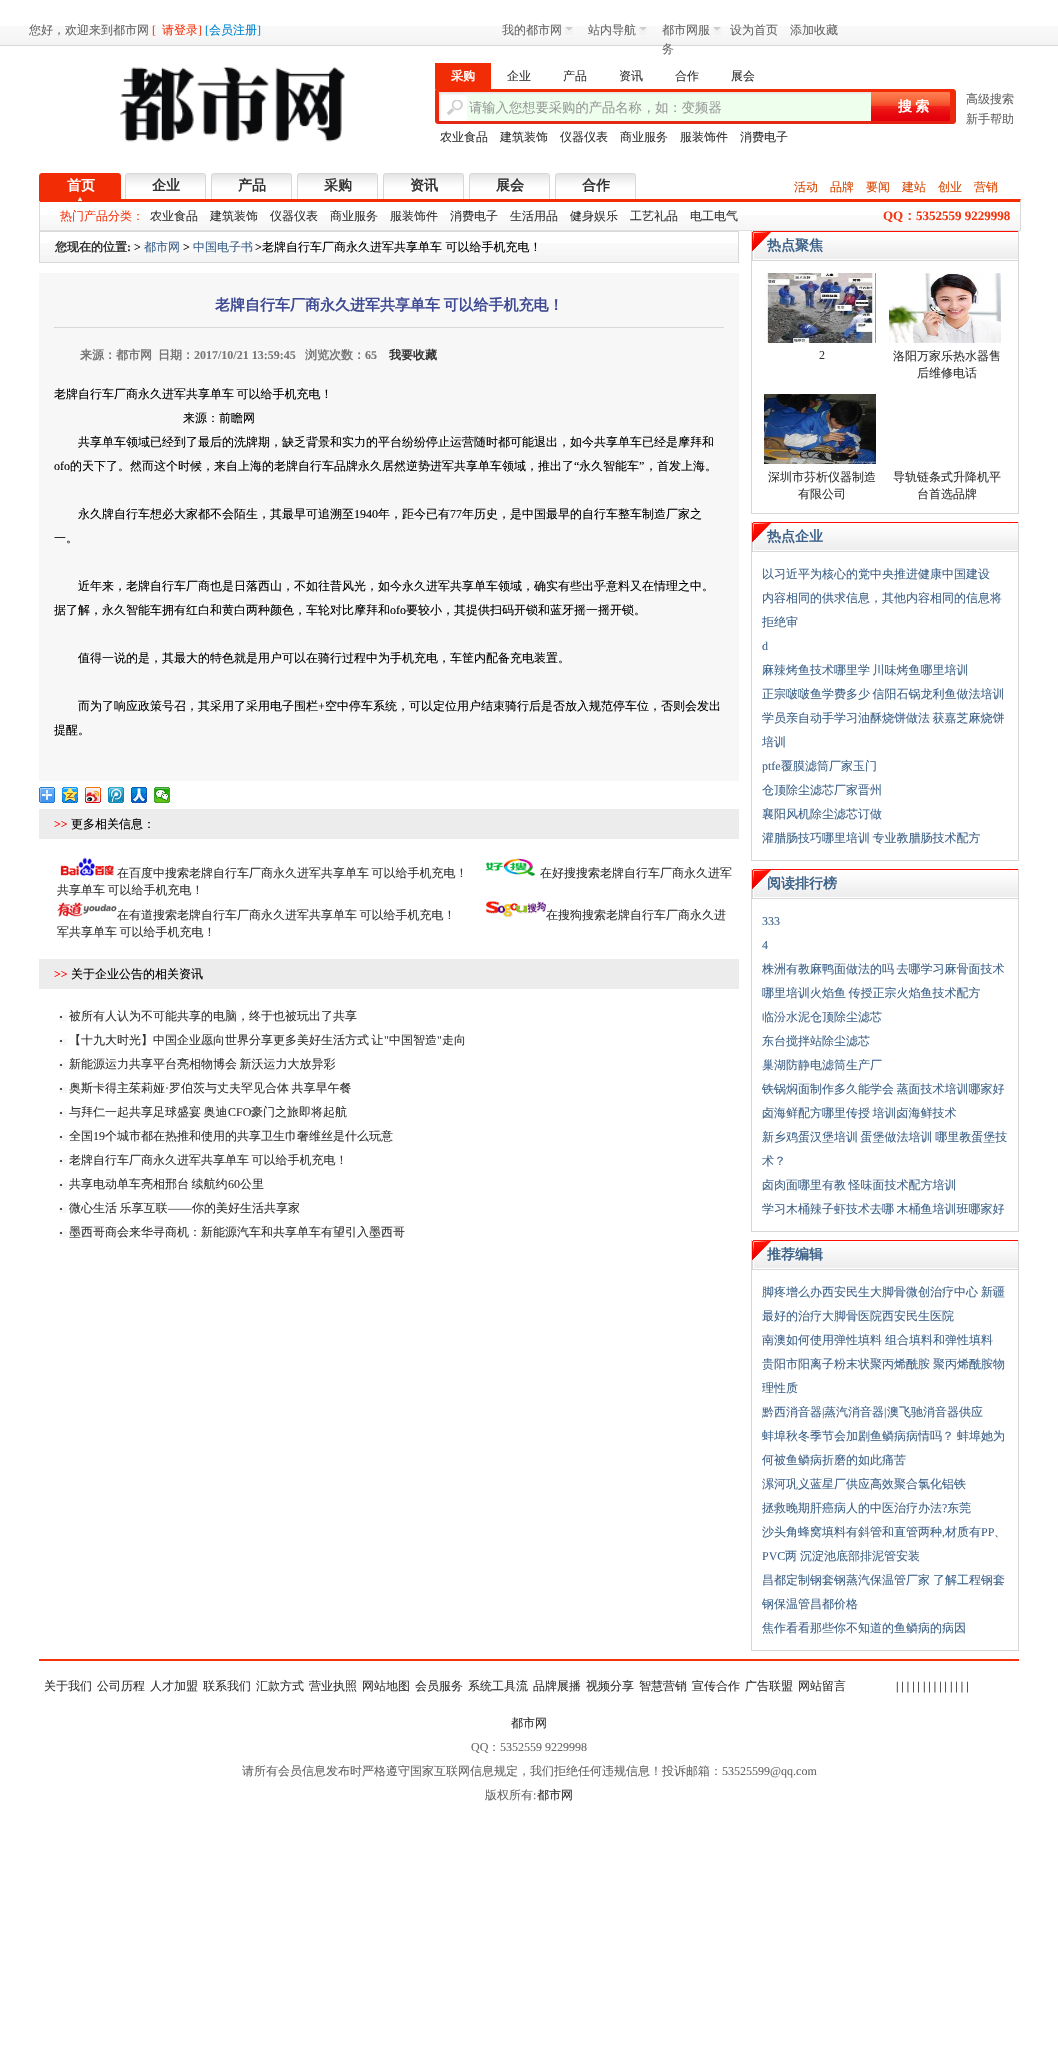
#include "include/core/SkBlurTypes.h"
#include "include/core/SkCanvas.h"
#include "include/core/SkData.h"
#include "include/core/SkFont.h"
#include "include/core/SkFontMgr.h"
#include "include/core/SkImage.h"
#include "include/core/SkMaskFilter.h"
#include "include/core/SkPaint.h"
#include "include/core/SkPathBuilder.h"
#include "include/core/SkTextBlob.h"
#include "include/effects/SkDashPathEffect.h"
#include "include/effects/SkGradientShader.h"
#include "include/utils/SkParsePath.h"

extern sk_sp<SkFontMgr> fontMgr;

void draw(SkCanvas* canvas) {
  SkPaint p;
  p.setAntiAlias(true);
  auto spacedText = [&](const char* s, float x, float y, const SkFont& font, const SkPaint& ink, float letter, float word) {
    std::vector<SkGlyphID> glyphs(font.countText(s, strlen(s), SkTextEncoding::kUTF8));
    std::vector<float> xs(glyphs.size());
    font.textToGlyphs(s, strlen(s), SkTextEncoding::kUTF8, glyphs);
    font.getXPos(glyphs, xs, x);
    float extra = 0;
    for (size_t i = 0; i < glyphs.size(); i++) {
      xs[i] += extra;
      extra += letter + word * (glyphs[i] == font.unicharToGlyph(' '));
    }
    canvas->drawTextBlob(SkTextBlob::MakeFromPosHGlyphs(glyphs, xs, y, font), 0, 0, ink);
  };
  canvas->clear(SK_ColorWHITE);
  canvas->drawImageRect(SkImages::DeferredFromEncodedData(SkData::MakeFromFileName("images/1.png")), SkRect::MakeLTRB(0, 26, 1058, 45), SkSamplingOptions());
  p.setColor(SkColorSetRGB(215, 215, 216));
  canvas->drawRect(SkRect::MakeLTRB(0, 45, 1058, 46), p);
  p.setColor(SkColorSetRGB(204, 204, 204));
  canvas->drawPath(SkPathBuilder().moveTo(565, 27).lineTo(573, 27).lineTo(569, 31).close().detach(), p);
  p.setColor(SkColorSetRGB(243, 243, 243));
  canvas->drawPath(SkPathBuilder().moveTo(573, 27).lineTo(573, 35).lineTo(569, 31).close().detach(), p);
  canvas->drawRect(SkRect::MakeLTRB(565, 31, 573, 35), p);
  canvas->drawPath(SkPathBuilder().moveTo(565, 35).lineTo(565, 27).lineTo(569, 31).close().detach(), p);
  p.setColor(SkColorSetRGB(204, 204, 204));
  canvas->drawPath(SkPathBuilder().moveTo(639, 27).lineTo(647, 27).lineTo(643, 31).close().detach(), p);
  p.setColor(SkColorSetRGB(243, 243, 243));
  canvas->drawPath(SkPathBuilder().moveTo(647, 27).lineTo(647, 35).lineTo(643, 31).close().detach(), p);
  canvas->drawRect(SkRect::MakeLTRB(639, 31, 647, 35), p);
  canvas->drawPath(SkPathBuilder().moveTo(639, 35).lineTo(639, 27).lineTo(643, 31).close().detach(), p);
  p.setColor(SkColorSetRGB(204, 204, 204));
  canvas->drawPath(SkPathBuilder().moveTo(713, 27).lineTo(721, 27).lineTo(717, 31).close().detach(), p);
  p.setColor(SkColorSetRGB(243, 243, 243));
  canvas->drawPath(SkPathBuilder().moveTo(721, 27).lineTo(721, 35).lineTo(717, 31).close().detach(), p);
  canvas->drawRect(SkRect::MakeLTRB(713, 31, 721, 35), p);
  canvas->drawPath(SkPathBuilder().moveTo(713, 35).lineTo(713, 27).lineTo(717, 31).close().detach(), p);
  canvas->drawImageRect(SkImages::DeferredFromEncodedData(SkData::MakeFromFileName("images/2.png")), SkRect::MakeLTRB(120, 67, 345, 142), SkSamplingOptions());
  p.setColor(SkColorSetRGB(242, 44, 4));
  canvas->drawRect(SkRect::MakeLTRB(435, 63, 491, 89), p);
  canvas->drawImageRect(SkImages::DeferredFromEncodedData(SkData::MakeFromFileName("images/3.png")), SkRect::MakeLTRB(435, 89, 464, 124), SkSamplingOptions());
  canvas->drawImageRect(SkImages::DeferredFromEncodedData(SkData::MakeFromFileName("images/4.png")), SkRect::MakeLTRB(464, 89, 871, 124), SkSamplingOptions());
  p.setColor(SkColorSetRGB(238, 255, 238));
  canvas->drawRect(SkRect::MakeLTRB(467, 94, 871, 121), p);
  canvas->drawImageRect(SkImages::DeferredFromEncodedData(SkData::MakeFromFileName("images/5.png")), SkRect::MakeLTRB(871, 89, 956, 124), SkSamplingOptions());
  p.setColor(SkColorSetRGB(242, 44, 4));
  canvas->drawPath(SkPathBuilder().moveTo(39, 199).lineTo(1021, 199).lineTo(1020, 202).lineTo(40, 202).close().detach(), p);
  p.setColor(SkColorSetRGB(217, 217, 217));
  canvas->drawPath(SkPathBuilder().moveTo(1021, 199).lineTo(1021, 231).lineTo(1020, 230).lineTo(1020, 202).close().detach(), p);
  p.setColor(SkColorSetRGB(223, 223, 223));
  canvas->drawRect(SkRect::MakeLTRB(39, 230, 1021, 231), p);
  p.setColor(SkColorSetRGB(217, 217, 217));
  canvas->drawPath(SkPathBuilder().moveTo(39, 231).lineTo(39, 199).lineTo(40, 202).lineTo(40, 230).close().detach(), p);
  canvas->drawImageRect(SkImages::DeferredFromEncodedData(SkData::MakeFromFileName("images/6.png")), SkRect::MakeLTRB(39, 173, 121, 201), SkSamplingOptions());
  canvas->drawImageRect(SkImages::DeferredFromEncodedData(SkData::MakeFromFileName("images/7.png")), SkRect::MakeLTRB(125, 173, 206, 199), SkSamplingOptions());
  canvas->drawImageRect(SkImages::DeferredFromEncodedData(SkData::MakeFromFileName("images/7.png")), SkRect::MakeLTRB(211, 173, 292, 199), SkSamplingOptions());
  canvas->drawImageRect(SkImages::DeferredFromEncodedData(SkData::MakeFromFileName("images/7.png")), SkRect::MakeLTRB(297, 173, 378, 199), SkSamplingOptions());
  canvas->drawImageRect(SkImages::DeferredFromEncodedData(SkData::MakeFromFileName("images/7.png")), SkRect::MakeLTRB(383, 173, 464, 199), SkSamplingOptions());
  canvas->drawImageRect(SkImages::DeferredFromEncodedData(SkData::MakeFromFileName("images/7.png")), SkRect::MakeLTRB(469, 173, 550, 199), SkSamplingOptions());
  canvas->drawImageRect(SkImages::DeferredFromEncodedData(SkData::MakeFromFileName("images/7.png")), SkRect::MakeLTRB(555, 173, 636, 199), SkSamplingOptions());
  canvas->drawImageRect(SkImages::DeferredFromEncodedData(SkData::MakeFromFileName("images/8.png")), SkRect::MakeLTRB(40, 215, 1020, 230), SkSamplingOptions());
  canvas->drawImageRect(SkImages::DeferredFromEncodedData(SkData::MakeFromFileName("images/9.png")), SkRect::MakeLTRB(40, 243, 738, 262), SkSamplingOptions());
  p.setStyle(SkPaint::kStroke_Style);
  p.setStrokeWidth(1);
  p.setColor(SkColorSetRGB(216, 216, 216));
  canvas->drawRect(SkRect::MakeLTRB(39.5f, 231.5f, 738.5f, 262.5f), p);
  p.setStyle(SkPaint::kFill_Style);
  p.setColor(SkColorSetRGB(247, 247, 247));
  canvas->drawRect(SkRect::MakeLTRB(39, 273, 739, 781), p);
  p.setColor(SkColorSetRGB(216, 216, 216));
  canvas->drawRect(SkRect::MakeLTRB(54, 327, 724, 328), p);
  canvas->drawImageRect(SkImages::DeferredFromEncodedData(SkData::MakeFromFileName("images/10.png")), SkRect::MakeLTRB(39, 787, 55, 803), SkSamplingOptions());
  canvas->drawImageRect(SkImages::DeferredFromEncodedData(SkData::MakeFromFileName("images/11.png")), SkRect::MakeLTRB(62, 787, 78, 803), SkSamplingOptions());
  canvas->drawImageRect(SkImages::DeferredFromEncodedData(SkData::MakeFromFileName("images/12.png")), SkRect::MakeLTRB(85, 787, 101, 803), SkSamplingOptions());
  canvas->drawImageRect(SkImages::DeferredFromEncodedData(SkData::MakeFromFileName("images/13.png")), SkRect::MakeLTRB(108, 787, 124, 803), SkSamplingOptions());
  canvas->drawImageRect(SkImages::DeferredFromEncodedData(SkData::MakeFromFileName("images/14.png")), SkRect::MakeLTRB(131, 787, 147, 803), SkSamplingOptions());
  canvas->drawImageRect(SkImages::DeferredFromEncodedData(SkData::MakeFromFileName("images/15.png")), SkRect::MakeLTRB(154, 787, 170, 803), SkSamplingOptions());
  p.setColor(SkColorSetRGB(236, 236, 236));
  canvas->drawRect(SkRect::MakeLTRB(39, 809, 739, 839), p);
  canvas->drawImageRect(SkImages::DeferredFromEncodedData(SkData::MakeFromFileName("images/16.png")), SkRect::MakeLTRB(60, 857, 114, 876), SkSamplingOptions());
  canvas->drawImageRect(SkImages::DeferredFromEncodedData(SkData::MakeFromFileName("images/17.png")), SkRect::MakeLTRB(485, 858, 535, 876), SkSamplingOptions());
  canvas->drawImageRect(SkImages::DeferredFromEncodedData(SkData::MakeFromFileName("images/18.png")), SkRect::MakeLTRB(57, 900, 117, 919), SkSamplingOptions());
  canvas->drawImageRect(SkImages::DeferredFromEncodedData(SkData::MakeFromFileName("images/19.png")), SkRect::MakeLTRB(486, 901, 546, 918), SkSamplingOptions());
  canvas->drawRect(SkRect::MakeLTRB(39, 959, 739, 989), p);
  canvas->drawImageRect(SkImages::DeferredFromEncodedData(SkData::MakeFromFileName("images/20.png")), SkRect::MakeLTRB(59, 1015, 67, 1021), SkSamplingOptions());
  canvas->drawImageRect(SkImages::DeferredFromEncodedData(SkData::MakeFromFileName("images/20.png")), SkRect::MakeLTRB(59, 1039, 67, 1045), SkSamplingOptions());
  canvas->drawImageRect(SkImages::DeferredFromEncodedData(SkData::MakeFromFileName("images/20.png")), SkRect::MakeLTRB(59, 1063, 67, 1069), SkSamplingOptions());
  canvas->drawImageRect(SkImages::DeferredFromEncodedData(SkData::MakeFromFileName("images/20.png")), SkRect::MakeLTRB(59, 1087, 67, 1093), SkSamplingOptions());
  canvas->drawImageRect(SkImages::DeferredFromEncodedData(SkData::MakeFromFileName("images/20.png")), SkRect::MakeLTRB(59, 1111, 67, 1117), SkSamplingOptions());
  canvas->drawImageRect(SkImages::DeferredFromEncodedData(SkData::MakeFromFileName("images/20.png")), SkRect::MakeLTRB(59, 1135, 67, 1141), SkSamplingOptions());
  canvas->drawImageRect(SkImages::DeferredFromEncodedData(SkData::MakeFromFileName("images/20.png")), SkRect::MakeLTRB(59, 1159, 67, 1165), SkSamplingOptions());
  canvas->drawImageRect(SkImages::DeferredFromEncodedData(SkData::MakeFromFileName("images/20.png")), SkRect::MakeLTRB(59, 1183, 67, 1189), SkSamplingOptions());
  canvas->drawImageRect(SkImages::DeferredFromEncodedData(SkData::MakeFromFileName("images/20.png")), SkRect::MakeLTRB(59, 1207, 67, 1213), SkSamplingOptions());
  canvas->drawImageRect(SkImages::DeferredFromEncodedData(SkData::MakeFromFileName("images/20.png")), SkRect::MakeLTRB(59, 1231, 67, 1237), SkSamplingOptions());
  p.setStyle(SkPaint::kStroke_Style);
  p.setColor(SkColorSetRGB(216, 216, 216));
  canvas->drawRect(SkRect::MakeLTRB(751.5f, 231.5f, 1018.5f, 513.5f), p);
  canvas->drawImageRect(SkImages::DeferredFromEncodedData(SkData::MakeFromFileName("images/21.png")), SkRect::MakeLTRB(752, 231, 1018, 261), SkSamplingOptions());
  canvas->drawImageRect(SkImages::DeferredFromEncodedData(SkData::MakeFromFileName("images/22.png")), SkRect::MakeLTRB(764, 273, 876, 343), SkSamplingOptions());
  canvas->drawImageRect(SkImages::DeferredFromEncodedData(SkData::MakeFromFileName("images/23.png")), SkRect::MakeLTRB(889, 273, 1001, 343), SkSamplingOptions());
  canvas->drawImageRect(SkImages::DeferredFromEncodedData(SkData::MakeFromFileName("images/24.png")), SkRect::MakeLTRB(764, 394, 876, 464), SkSamplingOptions());
  canvas->drawRect(SkRect::MakeLTRB(751.5f, 522.5f, 1018.5f, 860.5f), p);
  canvas->drawImageRect(SkImages::DeferredFromEncodedData(SkData::MakeFromFileName("images/21.png")), SkRect::MakeLTRB(752, 522, 1018, 552), SkSamplingOptions());
  canvas->drawRect(SkRect::MakeLTRB(751.5f, 869.5f, 1018.5f, 1231.5f), p);
  canvas->drawImageRect(SkImages::DeferredFromEncodedData(SkData::MakeFromFileName("images/21.png")), SkRect::MakeLTRB(752, 869, 1018, 899), SkSamplingOptions());
  canvas->drawRect(SkRect::MakeLTRB(751.5f, 1240.5f, 1018.5f, 1650.5f), p);
  canvas->drawImageRect(SkImages::DeferredFromEncodedData(SkData::MakeFromFileName("images/21.png")), SkRect::MakeLTRB(752, 1240, 1018, 1270), SkSamplingOptions());
  p.setStyle(SkPaint::kFill_Style);
  p.setColor(SkColorSetRGB(244, 49, 10));
  canvas->drawRect(SkRect::MakeLTRB(39, 1659, 1019, 1661), p);
  SkFont font1(fontMgr->matchFamilyStyle("WenQuanYi Zen Hei", SkFontStyle(500, SkFontStyle::kNormal_Width, SkFontStyle::kUpright_Slant)), 12);
  font1.setSubpixel(true);
  p.setColor(SkColorSetRGB(102, 102, 102));
  canvas->drawString("您好，欢迎来到都市网", 29, 34, font1, p);
  SkFont font2(fontMgr->matchFamilyStyle("Liberation Serif", SkFontStyle::Normal()), 12);
  font2.setSubpixel(true);
  p.setColor(SkColorSetRGB(245, 55, 17));
  canvas->drawString("[", 152, 34, font2, p);
  canvas->drawString("请登录", 162, 34, font1, p);
  canvas->drawString("]", 198, 34, font2, p);
  p.setColor(SkColorSetRGB(1, 135, 208));
  canvas->drawString("[", 205, 34, font2, p);
  canvas->drawString("会员注册", 209, 34, font1, p);
  canvas->drawString("]", 257, 34, font2, p);
  p.setColor(SkColorSetRGB(102, 102, 102));
  canvas->drawString("我的都市网", 502, 34, font1, p);
  canvas->drawString("站内导航", 588, 34, font1, p);
  canvas->drawString("都市网服", 662, 34, font1, p);
  canvas->drawString("务", 662, 53, font1, p);
  canvas->drawString("设为首页", 730, 34, font1, p);
  canvas->drawString("添加收藏", 790, 34, font1, p);
  SkFont font3(fontMgr->matchFamilyStyle("WenQuanYi Zen Hei", SkFontStyle::Bold()), 12);
  font3.setSubpixel(true);
  p.setColor(SK_ColorWHITE);
  canvas->drawString("采购", 451, 80, font3, p);
  p.setColor(SkColorSetRGB(51, 51, 51));
  canvas->drawString("企业", 507, 80, font1, p);
  canvas->drawString("产品", 563, 80, font1, p);
  canvas->drawString("资讯", 619, 80, font1, p);
  canvas->drawString("合作", 675, 80, font1, p);
  canvas->drawString("展会", 731, 80, font1, p);
  SkFont font4(fontMgr->matchFamilyStyle("WenQuanYi Zen Hei", SkFontStyle(500, SkFontStyle::kNormal_Width, SkFontStyle::kUpright_Slant)), 13.3f);
  font4.setSubpixel(true);
  p.setColor(SkColorSetRGB(153, 153, 153));
  canvas->drawString("请输入您想要采购的产品名称，如：变频器", 469, 112, font4, p);
  SkFont font5(fontMgr->matchFamilyStyle("WenQuanYi Zen Hei", SkFontStyle::Bold()), 14);
  font5.setSubpixel(true);
  p.setColor(SK_ColorWHITE);
  spacedText("搜 索", 898, 111, font5, p, 0, -1);
  p.setColor(SkColorSetRGB(102, 102, 102));
  canvas->drawString("高级搜索", 966, 103, font1, p);
  canvas->drawString("新手帮助", 966, 123, font1, p);
  p.setColor(SkColorSetRGB(51, 51, 51));
  canvas->drawString("农业食品", 440, 141, font1, p);
  canvas->drawString("建筑装饰", 500, 141, font1, p);
  canvas->drawString("仪器仪表", 560, 141, font1, p);
  canvas->drawString("商业服务", 620, 141, font1, p);
  canvas->drawString("服装饰件", 680, 141, font1, p);
  canvas->drawString("消费电子", 740, 141, font1, p);
  p.setColor(SK_ColorWHITE);
  canvas->drawString("首页", 67, 190, font5, p);
  p.setColor(SkColorSetRGB(51, 51, 51));
  canvas->drawString("企业", 152, 190, font5, p);
  canvas->drawString("产品", 238, 190, font5, p);
  canvas->drawString("采购", 324, 190, font5, p);
  canvas->drawString("资讯", 410, 190, font5, p);
  canvas->drawString("展会", 496, 190, font5, p);
  canvas->drawString("合作", 582, 190, font5, p);
  p.setColor(SkColorSetRGB(216, 70, 0));
  canvas->drawString("活动", 794, 191, font1, p);
  canvas->drawString("品牌", 830, 191, font1, p);
  canvas->drawString("要闻", 866, 191, font1, p);
  canvas->drawString("建站", 902, 191, font1, p);
  canvas->drawString("创业", 938, 191, font1, p);
  canvas->drawString("营销", 974, 191, font1, p);
  p.setColor(SkColorSetRGB(245, 55, 17));
  canvas->drawString("热门产品分类：", 60, 220, font1, p);
  p.setColor(SkColorSetRGB(51, 51, 51));
  canvas->drawString("农业食品", 150, 220, font1, p);
  canvas->drawString("建筑装饰", 210, 220, font1, p);
  canvas->drawString("仪器仪表", 270, 220, font1, p);
  canvas->drawString("商业服务", 330, 220, font1, p);
  canvas->drawString("服装饰件", 390, 220, font1, p);
  canvas->drawString("消费电子", 450, 220, font1, p);
  canvas->drawString("生活用品", 510, 220, font1, p);
  canvas->drawString("健身娱乐", 570, 220, font1, p);
  canvas->drawString("工艺礼品", 630, 220, font1, p);
  canvas->drawString("电工电气", 690, 220, font1, p);
  SkFont font6(fontMgr->matchFamilyStyle("Liberation Serif", SkFontStyle::Bold()), 13);
  font6.setSubpixel(true);
  p.setColor(SkColorSetRGB(245, 55, 17));
  canvas->drawString("QQ", 883, 220, font6, p);
  SkFont font7(fontMgr->matchFamilyStyle("WenQuanYi Zen Hei", SkFontStyle::Bold()), 13);
  font7.setSubpixel(true);
  canvas->drawString("：", 903, 220, font7, p);
  canvas->drawString("5352559 9229998", 916, 220, font6, p);
  p.setColor(SkColorSetRGB(51, 51, 51));
  canvas->drawString("您现在的位置", 55, 251, font3, p);
  SkFont font8(fontMgr->matchFamilyStyle("Liberation Serif", SkFontStyle::Bold()), 12);
  font8.setSubpixel(true);
  canvas->drawString(":", 127, 251, font8, p);
  p.setColor(SK_ColorBLACK);
  canvas->drawString(">", 134, 251, font2, p);
  p.setColor(SkColorSetRGB(61, 98, 137));
  canvas->drawString("都市网", 144, 251, font1, p);
  p.setColor(SK_ColorBLACK);
  canvas->drawString(">", 183, 251, font2, p);
  p.setColor(SkColorSetRGB(61, 98, 137));
  canvas->drawString("中国电子书", 193, 251, font1, p);
  p.setColor(SK_ColorBLACK);
  canvas->drawString(">", 255, 251, font2, p);
  canvas->drawString("老牌自行车厂商永久进军共享单车 可以给手机充电！", 262, 251, font1, p);
  SkFont font9(fontMgr->matchFamilyStyle("WenQuanYi Zen Hei", SkFontStyle::Bold()), 15);
  font9.setSubpixel(true);
  p.setColor(SkColorSetRGB(63, 75, 148));
  spacedText("老牌自行车厂商永久进军共享单车 可以给手机充电！", 215, 310, font9, p, 0, -1);
  p.setColor(SkColorSetRGB(119, 119, 119));
  canvas->drawString("来源：都市网", 80, 359, font3, p);
  canvas->drawString("日期：", 158, 359, font3, p);
  canvas->drawString("2017/10/21 13:59:45", 194, 359, font8, p);
  canvas->drawString("浏览次数：", 305, 359, font3, p);
  canvas->drawString("65", 365, 359, font8, p);
  p.setColor(SkColorSetRGB(51, 51, 51));
  canvas->drawString("我要收藏", 389, 359, font3, p);
  p.setColor(SK_ColorBLACK);
  spacedText("老牌自行车厂商永久进军共享单车 可以给手机充电！", 54, 398, font1, p, 0, -1);
  canvas->drawString("来源：前瞻网", 183, 422, font1, p);
  canvas->drawString("共享单车领域已经到了最后的洗牌期，缺乏背景和实力的平台纷纷停止运营随时都可能退出，如今共享单车已经是摩拜和", 78, 446, font1, p);
  canvas->drawString("ofo", 54, 470, font2, p);
  canvas->drawString("的天下了。然而这个时候，来自上海的老牌自行车品牌永久居然逆势进军共享单车领域，推出了", 70, 470, font1, p);
  canvas->drawString("“", 574, 470, font2, p);
  canvas->drawString("永久智能车", 579, 470, font1, p);
  canvas->drawString("”", 639, 470, font2, p);
  canvas->drawString("，首发上海。", 645, 470, font1, p);
  canvas->drawString("永久牌自行车想必大家都不会陌生，其最早可追溯至", 78, 518, font1, p);
  canvas->drawString("1940", 354, 518, font2, p);
  canvas->drawString("年，距今已有", 378, 518, font1, p);
  canvas->drawString("77", 450, 518, font2, p);
  canvas->drawString("年历史，是中国最早的自行车整车制造厂家之", 462, 518, font1, p);
  canvas->drawString("一。", 54, 542, font1, p);
  canvas->drawString("近年来，老牌自行车厂商也是日落西山，不如往昔风光，如今永久进军共享单车领域，确实有些出乎意料又在情理之中。", 78, 590, font1, p);
  canvas->drawString("据了解，永久智能车拥有红白和黄白两种颜色，车轮对比摩拜和", 54, 614, font1, p);
  canvas->drawString("ofo", 390, 614, font2, p);
  canvas->drawString("要较小，其提供扫码开锁和蓝牙摇一摇开锁。", 406, 614, font1, p);
  canvas->drawString("值得一说的是，其最大的特色就是用户可以在骑行过程中为手机充电，车筐内配备充电装置。", 78, 662, font1, p);
  canvas->drawString("而为了响应政策号召，其采用了采用电子围栏", 78, 710, font1, p);
  canvas->drawString("+", 318, 710, font2, p);
  canvas->drawString("空中停车系统，可以定位用户结束骑行后是否放入规范停车位，否则会发出", 325, 710, font1, p);
  canvas->drawString("提醒。", 54, 734, font1, p);
  p.setColor(SkColorSetRGB(255, 0, 0));
  canvas->drawString(">>", 54, 828, font8, p);
  p.setColor(SK_ColorBLACK);
  canvas->drawString("更多相关信息：", 71, 828, font1, p);
  p.setColor(SkColorSetRGB(51, 51, 51));
  spacedText("在百度中搜索老牌自行车厂商永久进军共享单车 可以给手机充电！", 117, 877, font1, p, 0, -1);
  canvas->drawString("在好搜搜索老牌自行车厂商永久进军", 540, 877, font1, p);
  spacedText("共享单车 可以给手机充电！", 57, 894, font1, p, 0, -1);
  spacedText("在有道搜索老牌自行车厂商永久进军共享单车 可以给手机充电！", 117, 919, font1, p, 0, -1);
  canvas->drawString("在搜狗搜索老牌自行车厂商永久进", 546, 919, font1, p);
  spacedText("军共享单车 可以给手机充电！", 57, 936, font1, p, 0, -1);
  p.setColor(SkColorSetRGB(255, 0, 0));
  canvas->drawString(">>", 54, 978, font8, p);
  p.setColor(SK_ColorBLACK);
  canvas->drawString("关于企业公告的相关资讯", 71, 978, font1, p);
  p.setColor(SkColorSetRGB(51, 51, 51));
  canvas->drawString("被所有人认为不可能共享的电脑，终于也被玩出了共享", 69, 1020, font1, p);
  spacedText("【十九大时光】中国企业愿向世界分享更多美好生活方式 让", 69, 1044, font1, p, 0, -1);
  canvas->drawString("\"", 384, 1044, font2, p);
  canvas->drawString("中国智造", 389, 1044, font1, p);
  canvas->drawString("\"", 437, 1044, font2, p);
  canvas->drawString("走向", 442, 1044, font1, p);
  spacedText("新能源运力共享平台亮相物博会 新沃运力大放异彩", 69, 1068, font1, p, 0, -1);
  canvas->drawString("奥斯卡得主茱莉娅", 69, 1092, font1, p);
  canvas->drawString("·", 165, 1092, font2, p);
  spacedText("罗伯茨与丈夫罕见合体 共享早午餐", 169, 1092, font1, p, 0, -1);
  spacedText("与拜仁一起共享足球盛宴 奥迪", 69, 1116, font1, p, 0, -1);
  canvas->drawString("CFO", 228, 1116, font2, p);
  canvas->drawString("豪门之旅即将起航", 251, 1116, font1, p);
  canvas->drawString("全国", 69, 1140, font1, p);
  canvas->drawString("19", 93, 1140, font2, p);
  canvas->drawString("个城市都在热推和使用的共享卫生巾奢维丝是什么玩意", 105, 1140, font1, p);
  spacedText("老牌自行车厂商永久进军共享单车 可以给手机充电！", 69, 1164, font1, p, 0, -1);
  spacedText("共享电动单车亮相邢台 续航约", 69, 1188, font1, p, 0, -1);
  canvas->drawString("60", 228, 1188, font2, p);
  canvas->drawString("公里", 240, 1188, font1, p);
  spacedText("微心生活 乐享互联", 69, 1212, font1, p, 0, -1);
  canvas->drawString("——", 168, 1212, font2, p);
  canvas->drawString("你的美好生活共享家", 192, 1212, font1, p);
  canvas->drawString("墨西哥商会来华寻商机：新能源汽车和共享单车有望引入墨西哥", 69, 1236, font1, p);
  p.setColor(SkColorSetRGB(61, 98, 137));
  canvas->drawString("热点聚焦", 767, 250, font5, p);
  p.setColor(SkColorSetRGB(51, 51, 51));
  canvas->drawString("2", 819, 359, font2, p);
  canvas->drawString("洛阳万家乐热水器售", 893, 360, font1, p);
  canvas->drawString("后维修电话", 917, 377, font1, p);
  canvas->drawString("深圳市芬析仪器制造", 768, 481, font1, p);
  canvas->drawString("有限公司", 798, 498, font1, p);
  canvas->drawString("导轨链条式升降机平", 893, 481, font1, p);
  canvas->drawString("台首选品牌", 917, 498, font1, p);
  p.setColor(SkColorSetRGB(61, 98, 137));
  canvas->drawString("热点企业", 767, 541, font5, p);
  canvas->drawString("以习近平为核心的党中央推进健康中国建设", 762, 578, font1, p);
  canvas->drawString("内容相同的供求信息，其他内容相同的信息将", 762, 602, font1, p);
  canvas->drawString("拒绝审", 762, 626, font1, p);
  canvas->drawString("d", 762, 650, font2, p);
  spacedText("麻辣烤鱼技术哪里学 川味烤鱼哪里培训", 762, 674, font1, p, 0, -1);
  spacedText("正宗啵啵鱼学费多少 信阳石锅龙利鱼做法培训", 762, 698, font1, p, 0, -1);
  spacedText("学员亲自动手学习油酥烧饼做法 获嘉芝麻烧饼", 762, 722, font1, p, 0, -1);
  canvas->drawString("培训", 762, 746, font1, p);
  canvas->drawString("ptfe", 762, 770, font2, p);
  canvas->drawString("覆膜滤筒厂家玉门", 781, 770, font1, p);
  canvas->drawString("仓顶除尘滤芯厂家晋州", 762, 794, font1, p);
  canvas->drawString("襄阳风机除尘滤芯订做", 762, 818, font1, p);
  spacedText("灌腊肠技巧哪里培训 专业教腊肠技术配方", 762, 842, font1, p, 0, -1);
  canvas->drawString("阅读排行榜", 767, 888, font5, p);
  canvas->drawString("333", 762, 925, font2, p);
  canvas->drawString("4", 762, 949, font2, p);
  spacedText("株洲有教麻鸭面做法的吗 去哪学习麻骨面技术", 762, 973, font1, p, 0, -1);
  spacedText("哪里培训火焰鱼 传授正宗火焰鱼技术配方", 762, 997, font1, p, 0, -1);
  canvas->drawString("临汾水泥仓顶除尘滤芯", 762, 1021, font1, p);
  canvas->drawString("东台搅拌站除尘滤芯", 762, 1045, font1, p);
  canvas->drawString("巢湖防静电滤筒生产厂", 762, 1069, font1, p);
  spacedText("铁锅焖面制作多久能学会 蒸面技术培训哪家好", 762, 1093, font1, p, 0, -1);
  spacedText("卤海鲜配方哪里传授 培训卤海鲜技术", 762, 1117, font1, p, 0, -1);
  spacedText("新乡鸡蛋汉堡培训 蛋堡做法培训 哪里教蛋堡技", 762, 1141, font1, p, 0, -1);
  canvas->drawString("术？", 762, 1165, font1, p);
  spacedText("卤肉面哪里有教 怪味面技术配方培训", 762, 1189, font1, p, 0, -1);
  spacedText("学习木桶辣子虾技术去哪 木桶鱼培训班哪家好", 762, 1213, font1, p, 0, -1);
  canvas->drawString("推荐编辑", 767, 1259, font5, p);
  canvas->drawString("脚疼增么办西安民生大脚骨微创治疗中心", 762, 1296, font1, p);
  canvas->drawString("新疆", 981, 1296, font1, p);
  canvas->drawString("最好的治疗大脚骨医院西安民生医院", 762, 1320, font1, p);
  canvas->drawString("南澳如何使用弹性填料", 762, 1344, font1, p);
  canvas->drawString("组合填料和弹性填料", 885, 1344, font1, p);
  canvas->drawString("贵阳市阳离子粉末状聚丙烯酰胺", 762, 1368, font1, p);
  canvas->drawString("聚丙烯酰胺物", 933, 1368, font1, p);
  canvas->drawString("理性质", 762, 1392, font1, p);
  canvas->drawString("黔西消音器", 762, 1416, font1, p);
  canvas->drawString("|", 822, 1416, font2, p);
  canvas->drawString("蒸汽消音器", 824, 1416, font1, p);
  canvas->drawString("|", 884, 1416, font2, p);
  canvas->drawString("澳飞驰消音器供应", 887, 1416, font1, p);
  canvas->drawString("蚌埠秋冬季节会加剧鱼鳞病病情吗？", 762, 1440, font1, p);
  canvas->drawString("蚌埠她为", 957, 1440, font1, p);
  canvas->drawString("何被鱼鳞病折磨的如此痛苦", 762, 1464, font1, p);
  canvas->drawString("漯河巩义蓝星厂供应高效聚合氯化铝铁", 762, 1488, font1, p);
  canvas->drawString("拯救晚期肝癌病人的中医治疗办法", 762, 1512, font1, p);
  canvas->drawString("?", 942, 1512, font2, p);
  canvas->drawString("东莞", 947, 1512, font1, p);
  canvas->drawString("沙头角蜂窝填料有斜管和直管两种", 762, 1536, font1, p);
  canvas->drawString(",", 942, 1536, font2, p);
  canvas->drawString("材质有", 945, 1536, font1, p);
  canvas->drawString("PP", 981, 1536, font2, p);
  canvas->drawString("、", 994, 1536, font1, p);
  canvas->drawString("PVC", 762, 1560, font2, p);
  canvas->drawString("两", 785, 1560, font1, p);
  canvas->drawString("沉淀池底部排泥管安装", 800, 1560, font1, p);
  canvas->drawString("昌都定制钢套钢蒸汽保温管厂家", 762, 1584, font1, p);
  canvas->drawString("了解工程钢套", 933, 1584, font1, p);
  canvas->drawString("钢保温管昌都价格", 762, 1608, font1, p);
  canvas->drawString("焦作看看那些你不知道的鱼鳞病的病因", 762, 1632, font1, p);
  p.setColor(SkColorSetRGB(51, 51, 51));
  canvas->drawString("关于我们", 44, 1690, font1, p);
  canvas->drawString("公司历程", 97, 1690, font1, p);
  canvas->drawString("人才加盟", 150, 1690, font1, p);
  canvas->drawString("联系我们", 203, 1690, font1, p);
  canvas->drawString("汇款方式", 256, 1690, font1, p);
  canvas->drawString("营业执照", 309, 1690, font1, p);
  canvas->drawString("网站地图", 362, 1690, font1, p);
  canvas->drawString("会员服务", 415, 1690, font1, p);
  canvas->drawString("系统工具流", 468, 1690, font1, p);
  canvas->drawString("品牌展播", 533, 1690, font1, p);
  canvas->drawString("视频分享", 586, 1690, font1, p);
  canvas->drawString("智慧营销", 639, 1690, font1, p);
  canvas->drawString("宣传合作", 692, 1690, font1, p);
  canvas->drawString("广告联盟", 745, 1690, font1, p);
  canvas->drawString("网站留言", 798, 1690, font1, p);
  p.setColor(SK_ColorBLACK);
  canvas->drawString("| | | | | | | | | | | | | |", 896, 1690, font2, p);
  p.setColor(SkColorSetRGB(51, 51, 51));
  canvas->drawString("都市网", 511, 1727, font1, p);
  p.setColor(SkColorSetRGB(102, 102, 102));
  canvas->drawString("QQ", 471, 1751, font2, p);
  canvas->drawString("：", 488, 1751, font1, p);
  canvas->drawString("5352559 9229998", 500, 1751, font2, p);
  canvas->drawString("请所有会员信息发布时严格遵守国家互联网信息规定，我们拒绝任何违规信息！投诉邮箱：", 242, 1775, font1, p);
  canvas->drawString("53525599@qq.com", 722, 1775, font2, p);
  canvas->drawString("版权所有", 485, 1799, font1, p);
  canvas->drawString(":", 533, 1799, font2, p);
  p.setColor(SkColorSetRGB(51, 51, 51));
  canvas->drawString("都市网", 537, 1799, font1, p);
}
